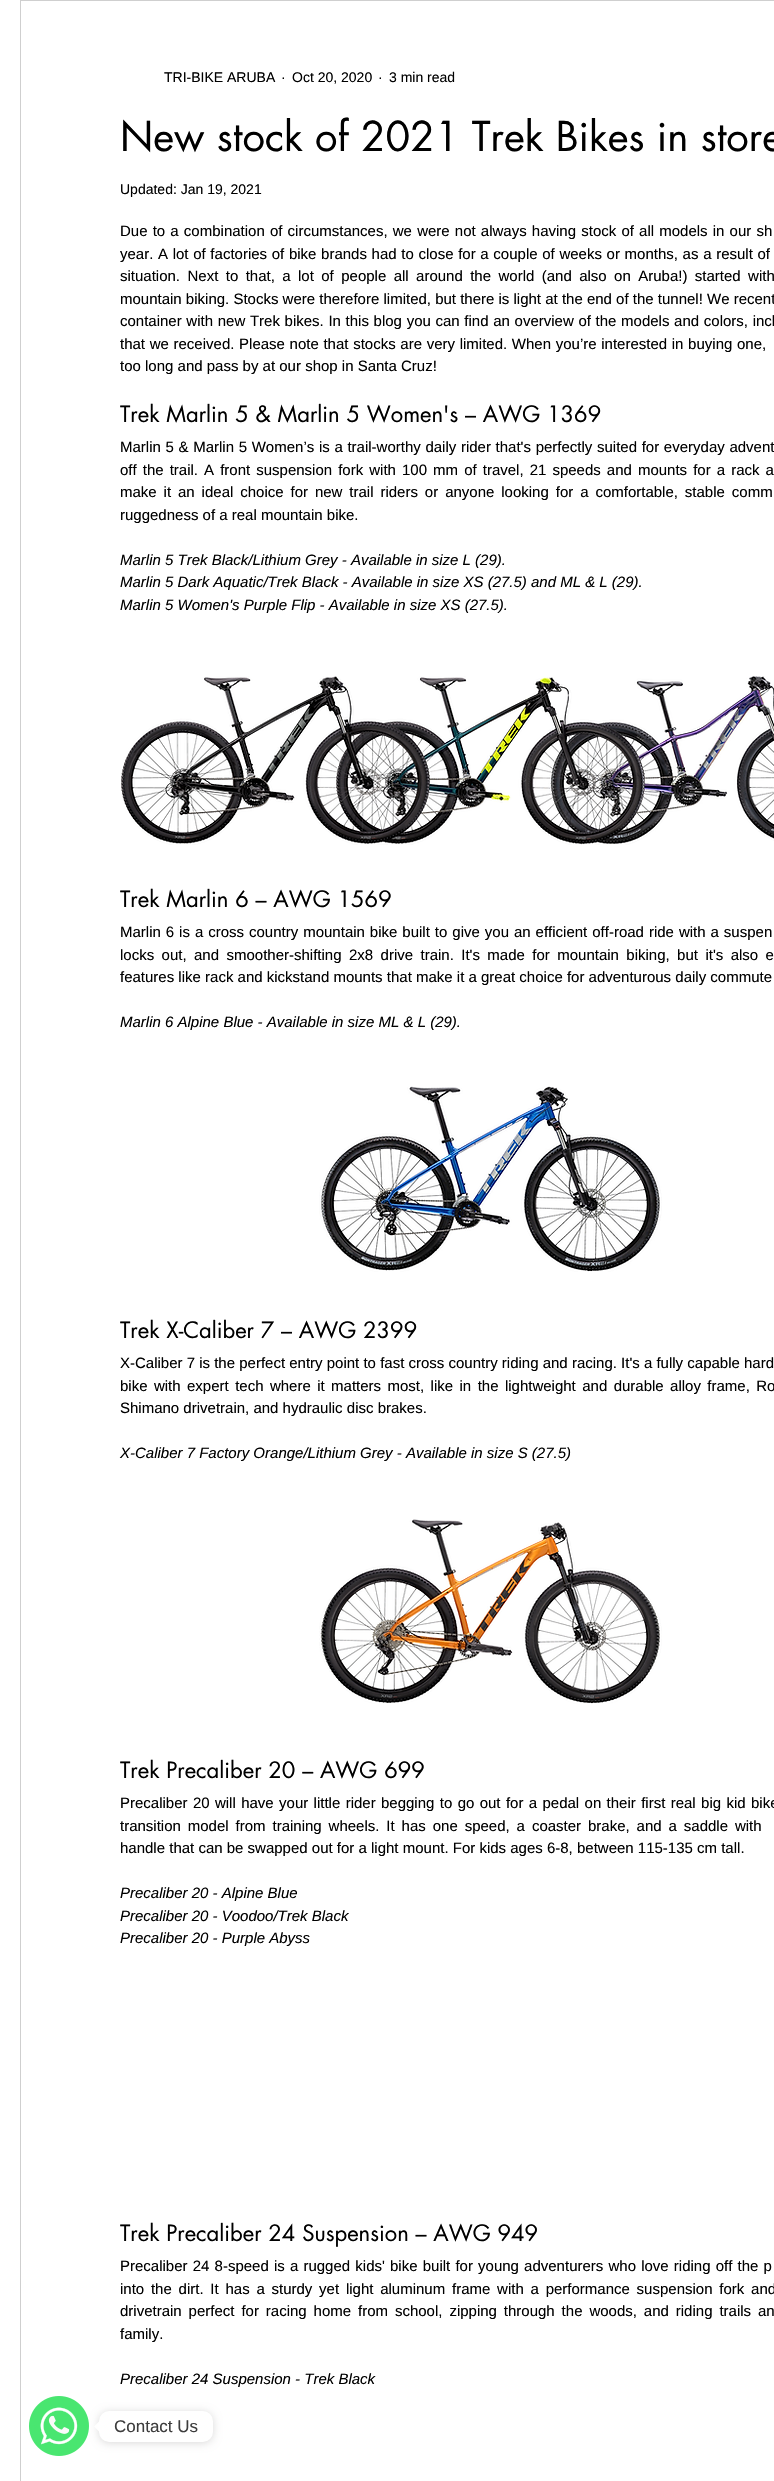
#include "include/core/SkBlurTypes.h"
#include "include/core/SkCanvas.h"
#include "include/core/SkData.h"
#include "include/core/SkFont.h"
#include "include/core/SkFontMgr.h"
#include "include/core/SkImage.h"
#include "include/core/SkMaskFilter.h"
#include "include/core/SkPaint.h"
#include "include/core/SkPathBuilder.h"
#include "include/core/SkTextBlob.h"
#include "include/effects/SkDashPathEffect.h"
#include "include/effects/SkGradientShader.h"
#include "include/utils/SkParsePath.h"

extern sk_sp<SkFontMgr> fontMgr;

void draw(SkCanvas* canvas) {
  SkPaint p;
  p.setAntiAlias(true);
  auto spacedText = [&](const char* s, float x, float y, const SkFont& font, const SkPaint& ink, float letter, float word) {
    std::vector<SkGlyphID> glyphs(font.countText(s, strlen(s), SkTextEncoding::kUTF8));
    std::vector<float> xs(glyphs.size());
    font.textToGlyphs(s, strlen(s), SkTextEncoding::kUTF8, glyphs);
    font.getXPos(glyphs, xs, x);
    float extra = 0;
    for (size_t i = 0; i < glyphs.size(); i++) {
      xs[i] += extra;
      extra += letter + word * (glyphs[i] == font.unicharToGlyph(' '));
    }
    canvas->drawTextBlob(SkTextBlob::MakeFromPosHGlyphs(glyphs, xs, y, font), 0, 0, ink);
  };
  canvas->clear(SK_ColorWHITE);
  p.setStyle(SkPaint::kStroke_Style);
  p.setStrokeWidth(1);
  p.setColor(SkColorSetRGB(207, 207, 207));
  canvas->drawRect(SkRect::MakeLTRB(20.5f, 0.5f, 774.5f, 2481.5f), p);
  canvas->drawImageRect(SkImages::DeferredFromEncodedData(SkData::MakeFromFileName("images/1.png")), SkRect::MakeLTRB(121, 676, 774, 845), SkSamplingOptions());
  canvas->drawImageRect(SkImages::DeferredFromEncodedData(SkData::MakeFromFileName("images/2.png")), SkRect::MakeLTRB(319, 1086, 662, 1272), SkSamplingOptions());
  canvas->drawImageRect(SkImages::DeferredFromEncodedData(SkData::MakeFromFileName("images/3.png")), SkRect::MakeLTRB(319, 1519, 662, 1704), SkSamplingOptions());
  canvas->drawImageRect(SkImages::DeferredFromEncodedData(SkData::MakeFromFileName("images/4.png")), SkRect::MakeLTRB(29, 2396, 89, 2456), SkSamplingOptions());
  p.setStyle(SkPaint::kFill_Style);
  p.setColor(SkColorSetARGB(38, 0, 0, 0));
  p.setMaskFilter(SkMaskFilter::MakeBlur(kNormal_SkBlurStyle, 4));
  canvas->drawRoundRect(SkRect::MakeLTRB(99, 2412, 213, 2443), 10, 10, p);
  p.setMaskFilter(nullptr);
  p.setColor(SK_ColorWHITE);
  canvas->drawRoundRect(SkRect::MakeLTRB(99, 2411, 213, 2442), 10, 10, p);
  canvas->drawPath(SkPathBuilder().moveTo(99, 2421.5f).lineTo(99, 2431.5f).lineTo(94, 2426.5f).close().detach(), p);
  SkFont font1(fontMgr->matchFamilyStyle("Liberation Sans", SkFontStyle::Normal()), 14);
  font1.setSubpixel(true);
  p.setColor(SK_ColorBLACK);
  canvas->drawString("TRI-BIKE ARUBA", 164, 82, font1, p);
  canvas->drawString("·", 281, 82, font1, p);
  canvas->drawString("Oct 20, 2020", 292, 82, font1, p);
  canvas->drawString("·", 378, 82, font1, p);
  canvas->drawString("3 min read", 389, 82, font1, p);
  SkFont font2(fontMgr->matchFamilyStyle("futura", SkFontStyle::Normal()), 40);
  font2.setSubpixel(true);
  canvas->drawString("New stock of 2021 Trek Bikes in store", 120, 151, font2, p);
  canvas->drawString("Updated: Jan 19, 2021", 120, 194, font1, p);
  SkFont font3(fontMgr->matchFamilyStyle("Liberation Sans", SkFontStyle::Normal()), 15);
  font3.setSubpixel(true);
  spacedText("Due to a combination of circumstances, we were not always having stock of all models in our sh", 120, 236, font3, p, 0, 1);
  spacedText("year. A lot of factories of bike brands had to close for a couple of weeks or months, as a result of", 120, 259, font3, p, 0, 0.5f);
  spacedText("situation. Next to that, a lot of people all around the world (and also on Aruba!) started with", 120, 281, font3, p, 0, 3.25f);
  canvas->drawString("mountain biking. Stocks were therefore limited, but there is light at the end of the tunnel! We recent", 120, 304, font3, p);
  spacedText("container with new Trek bikes. In this blog you can find an overview of the models and colors, incl", 120, 326, font3, p, 0, 0.5f);
  spacedText("that we received. Please note that stocks are very limited. When you’re interested in buying one,", 120, 349, font3, p, 0, 0.5f);
  canvas->drawString("too long and pass by at our shop in Santa Cruz!", 120, 371, font3, p);
  SkFont font4(fontMgr->matchFamilyStyle("futura", SkFontStyle::Normal()), 22);
  font4.setSubpixel(true);
  canvas->drawString("Trek Marlin 5 & Marlin 5 Women's – AWG 1369", 120, 422, font4, p);
  spacedText("Marlin 5 & Marlin 5 Women’s is a trail-worthy daily rider that's perfectly suited for everyday advent", 120, 452, font3, p, 0, 0.5f);
  spacedText("off the trail. A front suspension fork with 100 mm of travel, 21 speeds and mounts for a rack a", 120, 475, font3, p, 0, 1.9f);
  spacedText("make it an ideal choice for new trail riders or anyone looking for a comfortable, stable comm", 120, 497, font3, p, 0, 2.75f);
  canvas->drawString("ruggedness of a real mountain bike.", 120, 520, font3, p);
  SkFont font5(fontMgr->matchFamilyStyle("Liberation Sans", SkFontStyle::Italic()), 15);
  font5.setSubpixel(true);
  canvas->drawString("Marlin 5 Trek Black/Lithium Grey - Available in size L (29).", 120, 565, font5, p);
  canvas->drawString("Marlin 5 Dark Aquatic/Trek Black - Available in size XS (27.5) and ML & L (29).", 120, 587, font5, p);
  canvas->drawString("Marlin 5 Women's Purple Flip - Available in size XS (27.5).", 120, 610, font5, p);
  canvas->drawString("Trek Marlin 6 – AWG 1569", 120, 907, font4, p);
  spacedText("Marlin 6 is a cross country mountain bike built to give you an efficient off-road ride with a suspen", 120, 937, font3, p, 0, 0.8f);
  spacedText("locks out, and smoother-shifting 2x8 drive train. It's made for mountain biking, but it's also e", 120, 960, font3, p, 0, 3.25f);
  canvas->drawString("features like rack and kickstand mounts that make it a great choice for adventurous daily commute", 120, 982, font3, p);
  canvas->drawString("Marlin 6 Alpine Blue - Available in size ML & L (29).", 120, 1027, font5, p);
  canvas->drawString("Trek X-Caliber 7 – AWG 2399", 120, 1338, font4, p);
  canvas->drawString("X-Caliber 7 is the perfect entry point to fast cross country riding and racing. It's a fully capable hard", 120, 1368, font3, p);
  spacedText("bike with expert tech where it matters most, like in the lightweight and durable alloy frame, Ro", 120, 1391, font3, p, 0, 2.25f);
  canvas->drawString("Shimano drivetrain, and hydraulic disc brakes.", 120, 1413, font3, p);
  canvas->drawString("X-Caliber 7 Factory Orange/Lithium Grey - Available in size S (27.5)", 120, 1458, font5, p);
  canvas->drawString("Trek Precaliber 20 – AWG 699", 120, 1778, font4, p);
  spacedText("Precaliber 20 will have your little rider begging to go out for a pedal on their first real big kid bike", 120, 1808, font3, p, 0, 1.2f);
  spacedText("transition model from training wheels. It has one speed, a coaster brake, and a saddle with", 120, 1831, font3, p, 0, 2.75f);
  canvas->drawString("handle that can be swapped out for a light mount. For kids ages 6-8, between 115-135 cm tall.", 120, 1853, font3, p);
  canvas->drawString("Precaliber 20 - Alpine Blue", 120, 1898, font5, p);
  canvas->drawString("Precaliber 20 - Voodoo/Trek Black", 120, 1921, font5, p);
  canvas->drawString("Precaliber 20 - Purple Abyss", 120, 1943, font5, p);
  canvas->drawString("Trek Precaliber 24 Suspension – AWG 949", 120, 2241, font4, p);
  spacedText("Precaliber 24 8-speed is a rugged kids' bike built for young adventurers who love riding off the p", 120, 2271, font3, p, 0, 1);
  spacedText("into the dirt. It has a sturdy yet light aluminum frame with a performance suspension fork and", 120, 2294, font3, p, 0, 2.6f);
  spacedText("drivetrain perfect for racing home from school, zipping through the woods, and riding trails an", 120, 2316, font3, p, 0, 2.75f);
  canvas->drawString("family.", 120, 2339, font3, p);
  canvas->drawString("Precaliber 24 Suspension - Trek Black", 120, 2384, font5, p);
  SkFont font6(fontMgr->matchFamilyStyle("Liberation Sans", SkFontStyle::Normal()), 17);
  font6.setSubpixel(true);
  p.setColor(SkColorSetRGB(61, 61, 61));
  canvas->drawString("Contact Us", 114, 2432, font6, p);
}
